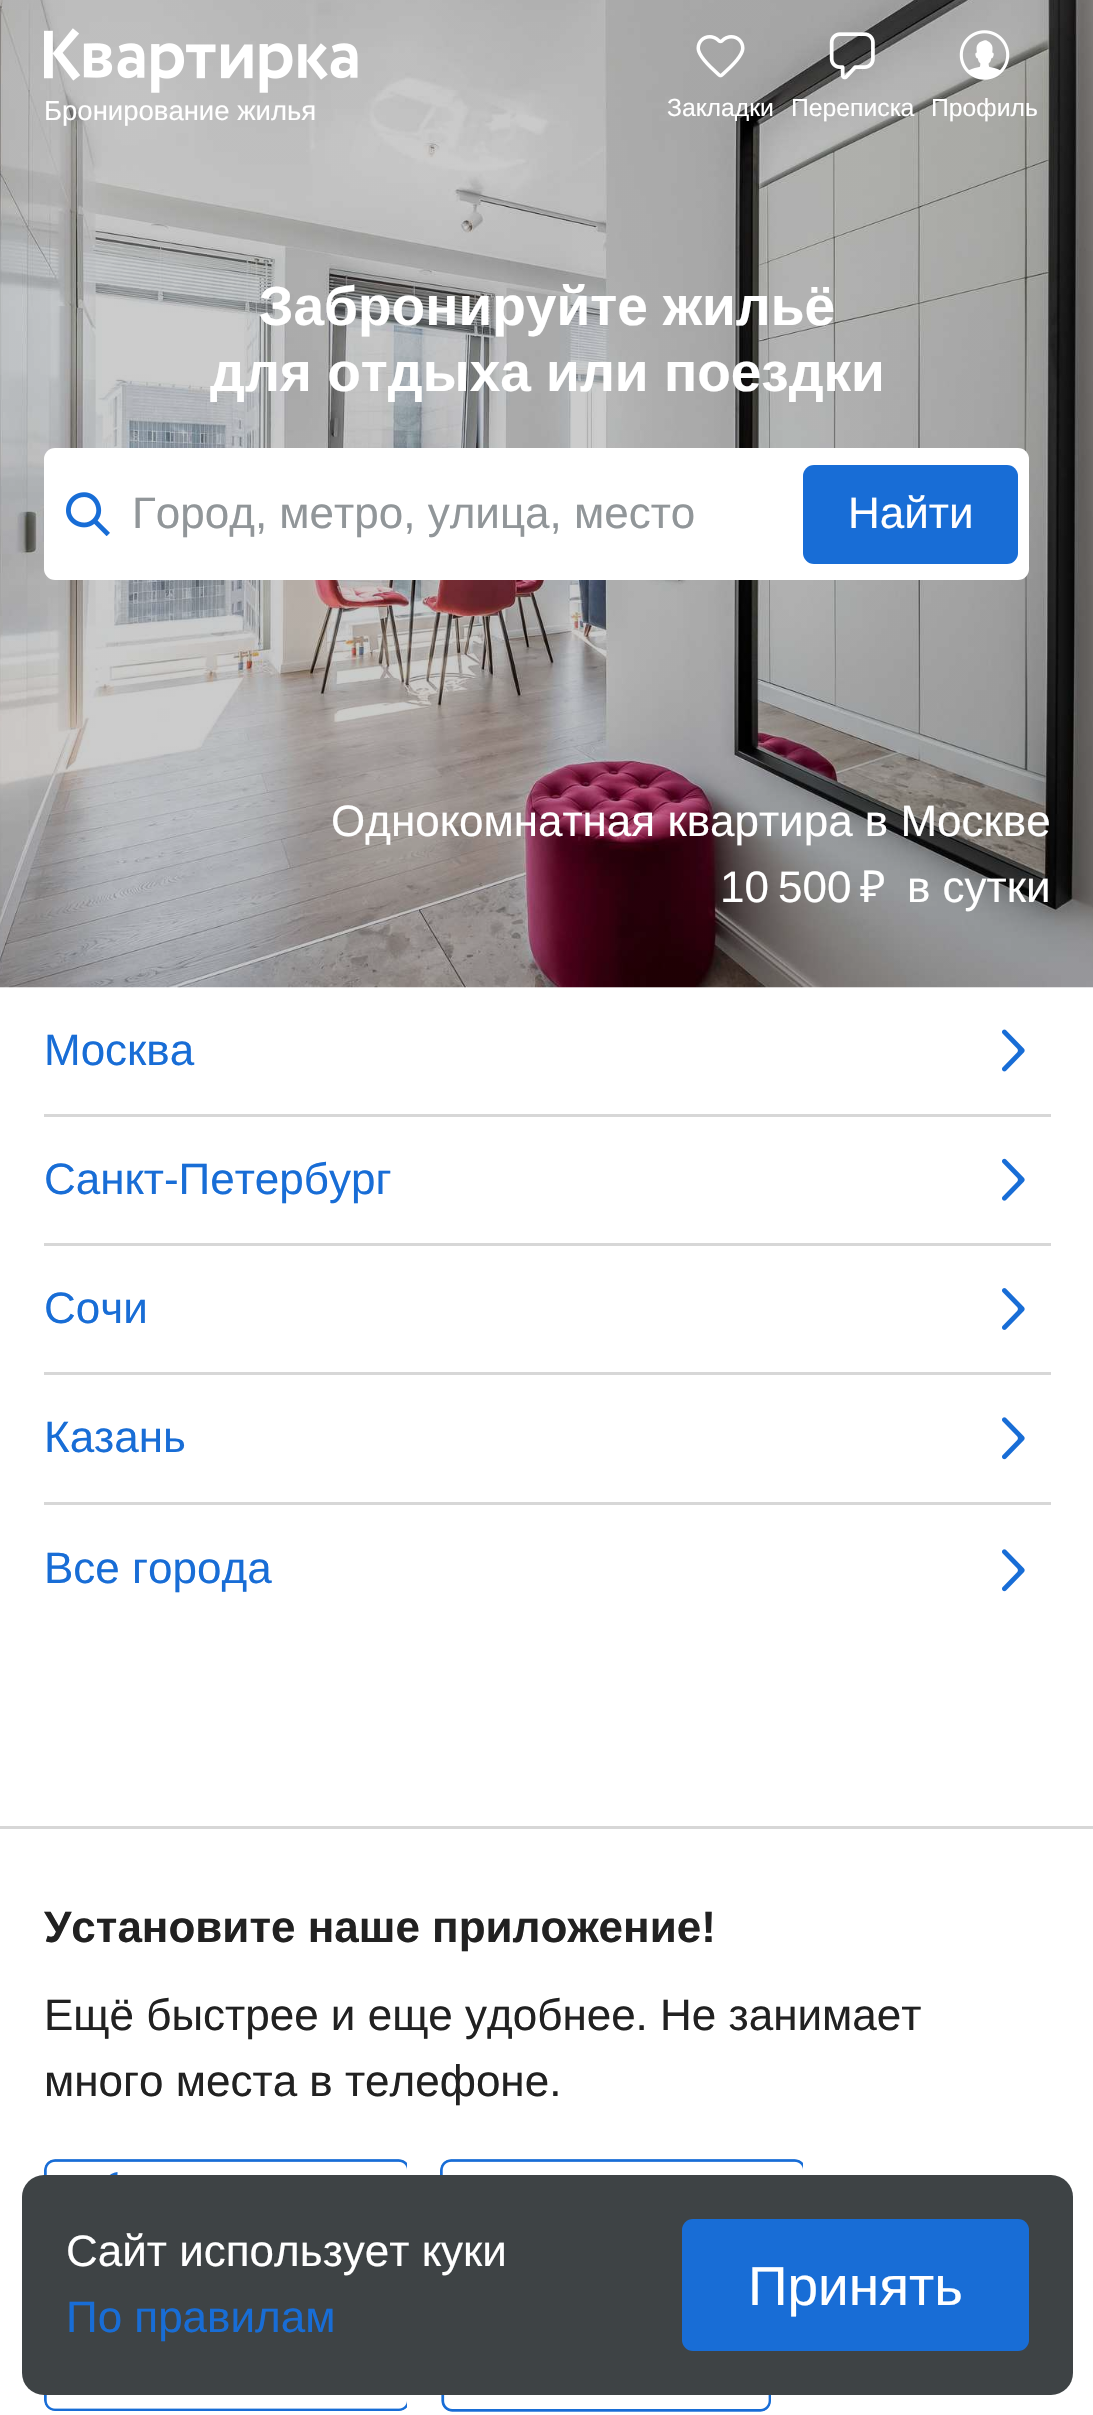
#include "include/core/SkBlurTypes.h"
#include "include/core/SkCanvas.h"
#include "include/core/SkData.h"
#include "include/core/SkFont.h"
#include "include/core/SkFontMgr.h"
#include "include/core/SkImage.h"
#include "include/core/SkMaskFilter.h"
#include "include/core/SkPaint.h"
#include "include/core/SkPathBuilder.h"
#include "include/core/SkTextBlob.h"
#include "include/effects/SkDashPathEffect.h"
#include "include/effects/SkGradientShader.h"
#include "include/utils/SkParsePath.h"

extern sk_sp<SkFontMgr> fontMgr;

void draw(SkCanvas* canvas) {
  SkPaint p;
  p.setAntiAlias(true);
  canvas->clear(SK_ColorWHITE);
  canvas->drawImageRect(SkImages::DeferredFromEncodedData(SkData::MakeFromFileName("images/5.png")), SkRect::MakeLTRB(0, 0, 1093, 988), SkSamplingOptions());
  canvas->drawImageRect(SkImages::DeferredFromEncodedData(SkData::MakeFromFileName("images/1.png")), SkRect::MakeLTRB(44, 28, 358, 93), SkSamplingOptions());
  canvas->drawImageRect(SkImages::DeferredFromEncodedData(SkData::MakeFromFileName("images/2.png")), SkRect::MakeLTRB(696, 35, 745, 78), SkSamplingOptions());
  canvas->drawImageRect(SkImages::DeferredFromEncodedData(SkData::MakeFromFileName("images/3.png")), SkRect::MakeLTRB(829, 32, 875, 80), SkSamplingOptions());
  canvas->drawImageRect(SkImages::DeferredFromEncodedData(SkData::MakeFromFileName("images/4.png")), SkRect::MakeLTRB(959, 30, 1010, 80), SkSamplingOptions());
  p.setColor(SK_ColorWHITE);
  canvas->drawRoundRect(SkRect::MakeLTRB(44, 448, 1029, 580), 11, 11, p);
  canvas->drawImageRect(SkImages::DeferredFromEncodedData(SkData::MakeFromFileName("images/6.png")), SkRect::MakeLTRB(66, 492, 110, 536), SkSamplingOptions());
  p.setColor(SkColorSetRGB(24, 109, 214));
  canvas->drawRoundRect(SkRect::MakeLTRB(803, 465, 1018, 564), 11, 11, p);
  p.setColor(SkColorSetRGB(215, 215, 215));
  canvas->drawRect(SkRect::MakeLTRB(44, 1114, 1051, 1117), p);
  canvas->drawImageRect(SkImages::DeferredFromEncodedData(SkData::MakeFromFileName("images/7.png")), SkRect::MakeLTRB(1002, 1029, 1025, 1072), SkSamplingOptions());
  canvas->drawRect(SkRect::MakeLTRB(44, 1243, 1051, 1246), p);
  canvas->drawImageRect(SkImages::DeferredFromEncodedData(SkData::MakeFromFileName("images/8.png")), SkRect::MakeLTRB(1002, 1158, 1025, 1201), SkSamplingOptions());
  canvas->drawRect(SkRect::MakeLTRB(44, 1372, 1051, 1375), p);
  canvas->drawImageRect(SkImages::DeferredFromEncodedData(SkData::MakeFromFileName("images/9.png")), SkRect::MakeLTRB(1002, 1288, 1025, 1330), SkSamplingOptions());
  canvas->drawRect(SkRect::MakeLTRB(44, 1502, 1051, 1505), p);
  canvas->drawImageRect(SkImages::DeferredFromEncodedData(SkData::MakeFromFileName("images/10.png")), SkRect::MakeLTRB(1002, 1417, 1025, 1460), SkSamplingOptions());
  canvas->drawImageRect(SkImages::DeferredFromEncodedData(SkData::MakeFromFileName("images/10.png")), SkRect::MakeLTRB(1002, 1549, 1025, 1592), SkSamplingOptions());
  canvas->drawRect(SkRect::MakeLTRB(0, 1826, 1093, 1829), p);
  canvas->drawImageRect(SkImages::DeferredFromEncodedData(SkData::MakeFromFileName("images/11.png")), SkRect::MakeLTRB(44, 2159, 407, 2175), SkSamplingOptions());
  canvas->drawImageRect(SkImages::DeferredFromEncodedData(SkData::MakeFromFileName("images/12.png")), SkRect::MakeLTRB(440, 2159, 803, 2175), SkSamplingOptions());
  canvas->drawImageRect(SkImages::DeferredFromEncodedData(SkData::MakeFromFileName("images/13.png")), SkRect::MakeLTRB(44, 2395, 407, 2411), SkSamplingOptions());
  canvas->drawImageRect(SkImages::DeferredFromEncodedData(SkData::MakeFromFileName("images/14.png")), SkRect::MakeLTRB(441, 2395, 771, 2412), SkSamplingOptions());
  p.setColor(SkColorSetRGB(62, 67, 69));
  canvas->drawRoundRect(SkRect::MakeLTRB(22, 2175, 1073, 2395), 22, 22, p);
  p.setColor(SkColorSetRGB(24, 109, 214));
  canvas->drawRoundRect(SkRect::MakeLTRB(682, 2219, 1029, 2351), 11, 11, p);
  SkFont font1(fontMgr->matchFamilyStyle("Liberation Sans", SkFontStyle::Normal()), 27.5f);
  font1.setSubpixel(true);
  p.setColor(SK_ColorWHITE);
  canvas->drawString("Бронирование жилья", 44, 120, font1, p);
  SkFont font2(fontMgr->matchFamilyStyle("Liberation Sans", SkFontStyle::Normal()), 24.75f);
  font2.setSubpixel(true);
  canvas->drawString("Закладки", 667, 116, font2, p);
  canvas->drawString("Переписка", 791, 116, font2, p);
  canvas->drawString("Профиль", 931, 116, font2, p);
  SkFont font3(fontMgr->matchFamilyStyle("Liberation Sans", SkFontStyle::Bold()), 55);
  font3.setSubpixel(true);
  canvas->drawString("Забронируйте жильё", 259, 325, font3, p);
  canvas->drawString("для отдыха или поездки", 210, 391, font3, p);
  SkFont font4(fontMgr->matchFamilyStyle("Liberation Sans", SkFontStyle::Normal()), 44);
  font4.setSubpixel(true);
  p.setColor(SkColorSetRGB(145, 150, 153));
  canvas->drawString("Город, метро, улица, место", 132, 528, font4, p);
  p.setColor(SK_ColorWHITE);
  canvas->drawString("Найти", 848, 528, font4, p);
  canvas->drawString("Однокомнатная квартира в Москве", 331, 836, font4, p);
  canvas->drawString("10", 720, 902, font4, p);
  canvas->drawString("500", 778, 902, font4, p);
  SkFont font5(fontMgr->matchFamilyStyle("Noto Sans", SkFontStyle::Normal()), 44);
  font5.setSubpixel(true);
  canvas->drawString("₽", 860, 902, font5, p);
  canvas->drawString("в сутки", 907, 902, font4, p);
  p.setColor(SkColorSetRGB(24, 109, 214));
  canvas->drawString("Москва", 44, 1065, font4, p);
  canvas->drawString("Санкт-Петербург", 44, 1194, font4, p);
  canvas->drawString("Сочи", 44, 1323, font4, p);
  canvas->drawString("Казань", 44, 1452, font4, p);
  canvas->drawString("Все города", 44, 1583, font4, p);
  SkFont font6(fontMgr->matchFamilyStyle("Liberation Sans", SkFontStyle::Bold()), 44);
  font6.setSubpixel(true);
  p.setColor(SkColorSetRGB(33, 33, 33));
  canvas->drawString("Установите наше приложение!", 44, 1942, font6, p);
  canvas->drawString("Ещё быстрее и еще удобнее. Не занимает", 44, 2030, font4, p);
  canvas->drawString("много места в телефоне.", 44, 2096, font4, p);
  p.setColor(SK_ColorWHITE);
  canvas->drawString("Сайт использует куки", 66, 2266, font4, p);
  SkFont font7(fontMgr->matchFamilyStyle("Liberation Sans", SkFontStyle::Normal()), 55);
  font7.setSubpixel(true);
  canvas->drawString("Принять", 748, 2305, font7, p);
  p.setColor(SkColorSetRGB(24, 109, 214));
  canvas->drawString("По правилам", 66, 2332, font4, p);
}
